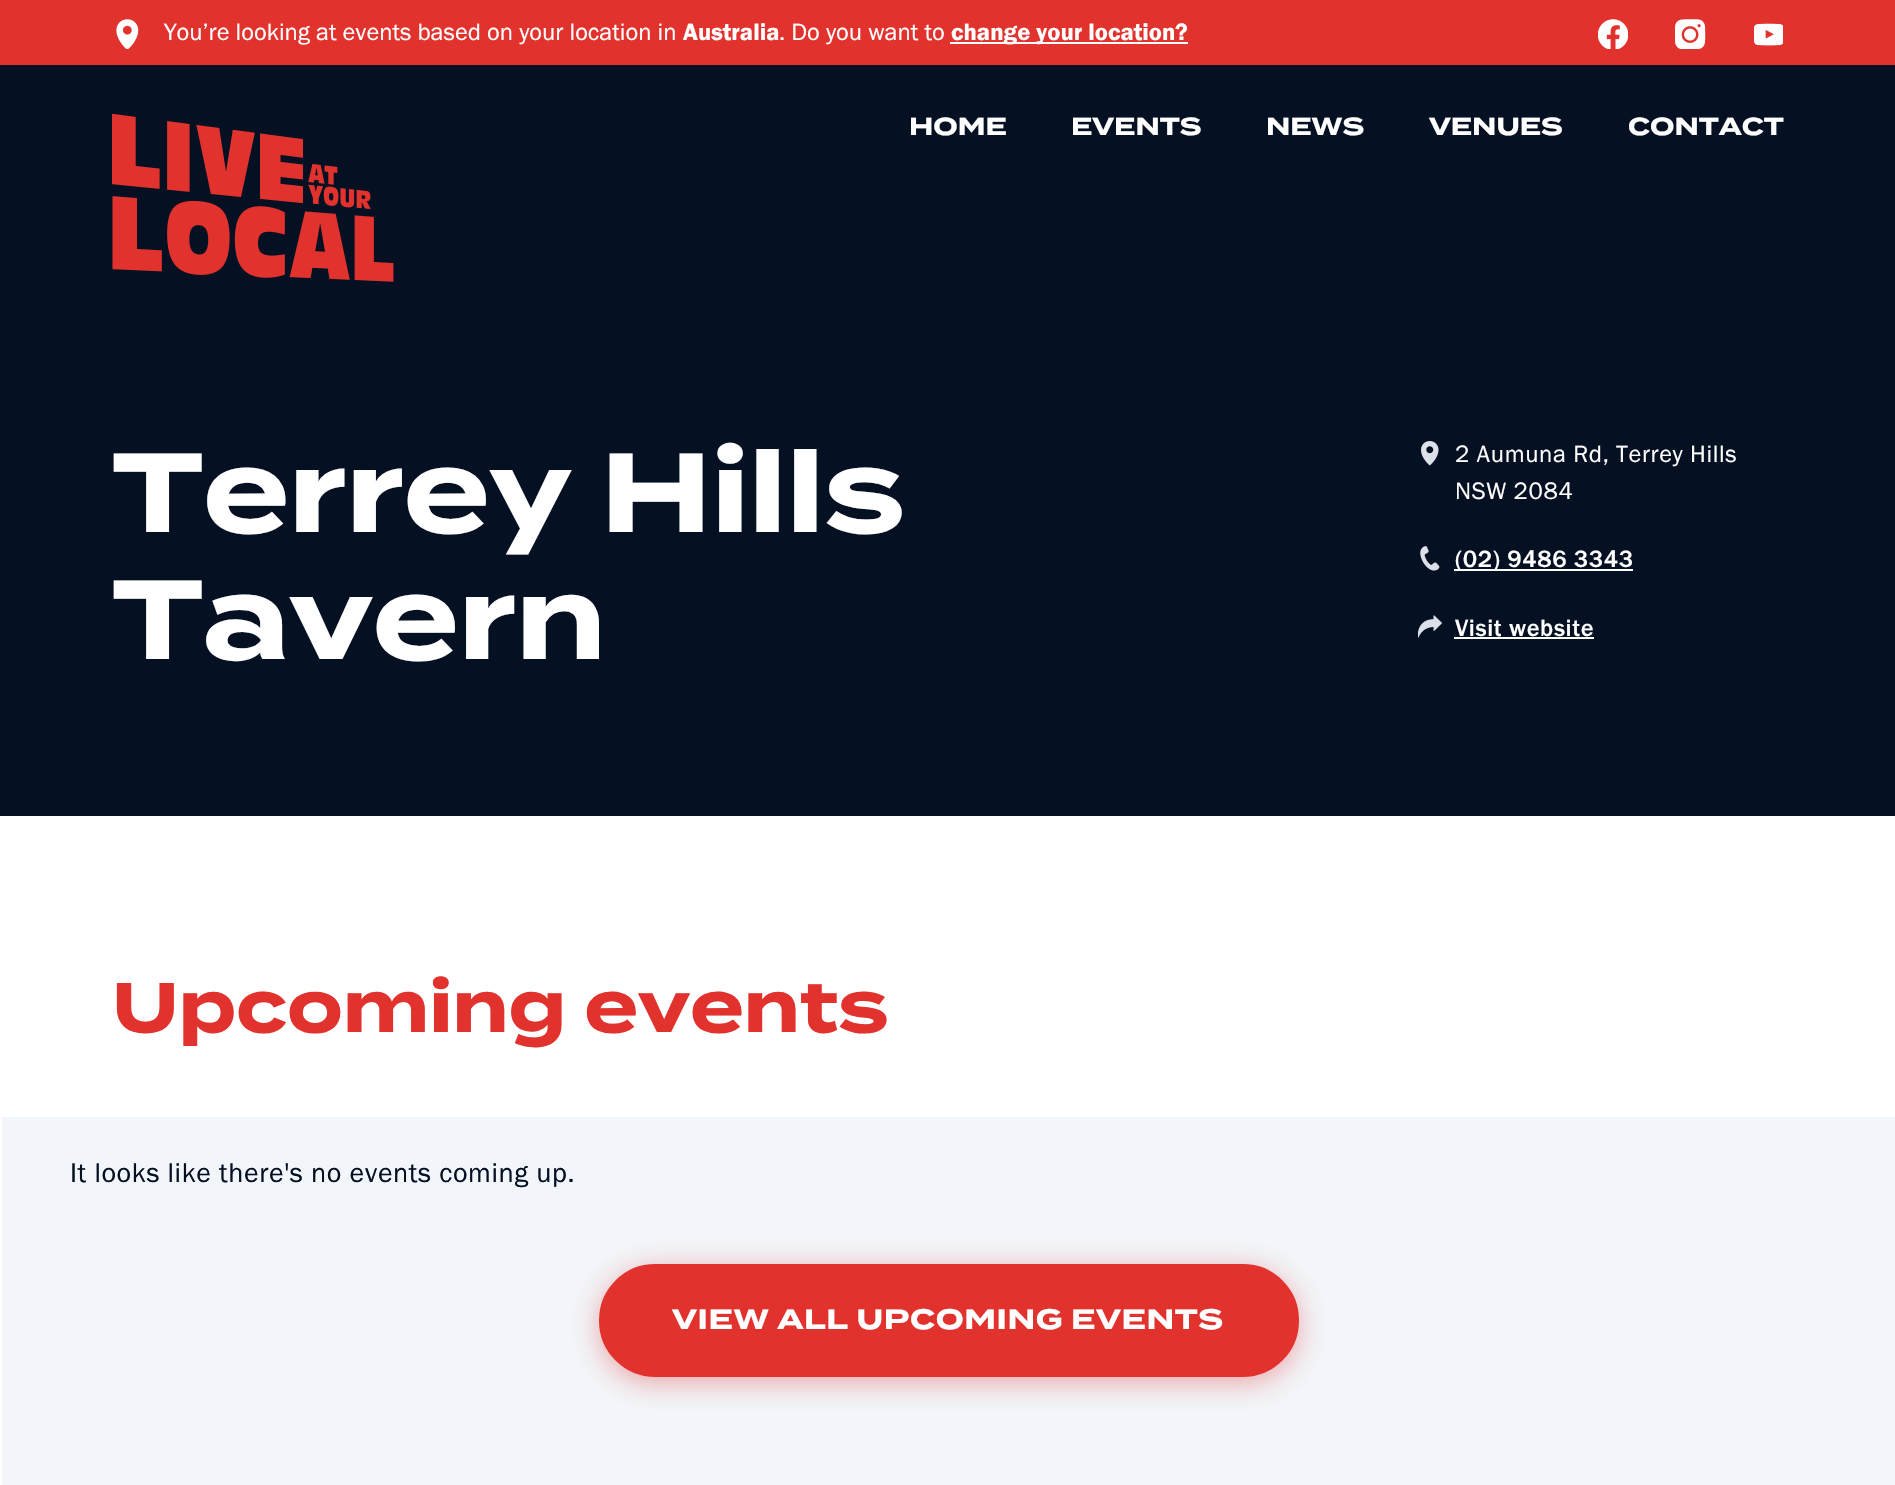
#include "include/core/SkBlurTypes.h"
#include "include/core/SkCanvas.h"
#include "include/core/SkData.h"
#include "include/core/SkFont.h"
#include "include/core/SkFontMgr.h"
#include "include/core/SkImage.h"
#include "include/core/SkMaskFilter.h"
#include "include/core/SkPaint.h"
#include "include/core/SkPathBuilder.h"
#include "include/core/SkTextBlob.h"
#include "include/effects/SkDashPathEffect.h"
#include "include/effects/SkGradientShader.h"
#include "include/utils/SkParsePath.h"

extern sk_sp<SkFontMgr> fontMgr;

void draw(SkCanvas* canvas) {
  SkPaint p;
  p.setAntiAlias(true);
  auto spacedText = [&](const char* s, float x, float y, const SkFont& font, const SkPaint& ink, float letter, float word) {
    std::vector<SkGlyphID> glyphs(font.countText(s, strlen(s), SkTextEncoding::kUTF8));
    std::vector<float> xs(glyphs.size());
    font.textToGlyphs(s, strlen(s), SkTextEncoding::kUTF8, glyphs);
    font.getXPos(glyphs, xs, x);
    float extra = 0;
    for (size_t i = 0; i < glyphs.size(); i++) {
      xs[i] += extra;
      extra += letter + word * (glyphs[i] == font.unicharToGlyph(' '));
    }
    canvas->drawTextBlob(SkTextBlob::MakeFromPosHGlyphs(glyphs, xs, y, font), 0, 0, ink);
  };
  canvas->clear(SK_ColorWHITE);
  p.setColor(SkColorSetRGB(226, 50, 45));
  canvas->drawRect(SkRect::MakeLTRB(0, 0, 1895, 65), p);
  canvas->drawImageRect(SkImages::DeferredFromEncodedData(SkData::MakeFromFileName("images/1.png")), SkRect::MakeLTRB(116, 19, 139, 49), SkSamplingOptions());
  p.setColor(SK_ColorWHITE);
  canvas->drawRect(SkRect::MakeLTRB(950, 42, 1188, 44), p);
  canvas->drawImageRect(SkImages::DeferredFromEncodedData(SkData::MakeFromFileName("images/2.png")), SkRect::MakeLTRB(1598, 19, 1628, 49), SkSamplingOptions());
  canvas->drawImageRect(SkImages::DeferredFromEncodedData(SkData::MakeFromFileName("images/3.png")), SkRect::MakeLTRB(1675, 19, 1706, 49), SkSamplingOptions());
  canvas->drawImageRect(SkImages::DeferredFromEncodedData(SkData::MakeFromFileName("images/4.png")), SkRect::MakeLTRB(1754, 23, 1783, 46), SkSamplingOptions());
  p.setColor(SkColorSetRGB(5, 16, 35));
  canvas->drawRect(SkRect::MakeLTRB(0, 65, 1895, 816), p);
  canvas->drawImageRect(SkImages::DeferredFromEncodedData(SkData::MakeFromFileName("images/5.png")), SkRect::MakeLTRB(112, 114, 394, 282), SkSamplingOptions());
  canvas->drawImageRect(SkImages::DeferredFromEncodedData(SkData::MakeFromFileName("images/6.png")), SkRect::MakeLTRB(1421, 441, 1439, 466), SkSamplingOptions());
  canvas->drawImageRect(SkImages::DeferredFromEncodedData(SkData::MakeFromFileName("images/7.png")), SkRect::MakeLTRB(1420, 546, 1440, 571), SkSamplingOptions());
  p.setColor(SK_ColorWHITE);
  canvas->drawRect(SkRect::MakeLTRB(1454, 569, 1633, 571), p);
  canvas->drawImageRect(SkImages::DeferredFromEncodedData(SkData::MakeFromFileName("images/8.png")), SkRect::MakeLTRB(1418, 615, 1442, 638), SkSamplingOptions());
  canvas->drawRect(SkRect::MakeLTRB(1454, 637, 1594, 639), p);
  p.setColor(SkColorSetRGB(242, 245, 249));
  canvas->drawRect(SkRect::MakeLTRB(2, 1117, 1895, 1485), p);
  canvas->save();
  canvas->clipPath(SkPathBuilder(SkPathFillType::kEvenOdd).moveTo(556, 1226).lineTo(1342, 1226).lineTo(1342, 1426).lineTo(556, 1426).close().moveTo(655, 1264).lineTo(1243, 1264).cubicTo(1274, 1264, 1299, 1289, 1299, 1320).lineTo(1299, 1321).cubicTo(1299, 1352, 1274, 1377, 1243, 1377).lineTo(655, 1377).cubicTo(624, 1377, 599, 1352, 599, 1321).lineTo(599, 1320).cubicTo(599, 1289, 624, 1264, 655, 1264).close().detach(), true);
  p.setColor(SkColorSetARGB(102, 226, 50, 45));
  p.setMaskFilter(SkMaskFilter::MakeBlur(kNormal_SkBlurStyle, 14));
  canvas->drawRoundRect(SkRect::MakeLTRB(599, 1269, 1299, 1383), 56, 56, p);
  p.setMaskFilter(nullptr);
  canvas->restore();
  p.setColor(SkColorSetRGB(226, 50, 45));
  canvas->drawRoundRect(SkRect::MakeLTRB(601, 1266, 1297, 1375), 54, 54, p);
  p.setStyle(SkPaint::kStroke_Style);
  p.setStrokeWidth(4);
  canvas->drawRoundRect(SkRect::MakeLTRB(601, 1266, 1297, 1375), 54, 54, p);
  SkFont font1(fontMgr->matchFamilyStyle("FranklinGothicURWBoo", SkFontStyle::Normal()), 24.5f);
  font1.setSubpixel(true);
  p.setStyle(SkPaint::kFill_Style);
  p.setColor(SK_ColorWHITE);
  canvas->drawString("You’re looking at events based on your location in", 164, 40, font1, p);
  SkFont font2(fontMgr->matchFamilyStyle("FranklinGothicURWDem", SkFontStyle::Normal()), 24.5f);
  font2.setSubpixel(true);
  canvas->drawString("Australia", 683, 40, font2, p);
  canvas->drawString(". Do you want to", 779, 40, font1, p);
  canvas->drawString("change your location?", 951, 40, font2, p);
  SkFont font3(fontMgr->matchFamilyStyle("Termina", SkFontStyle::Bold()), 24.5f);
  font3.setSubpixel(true);
  canvas->drawString("HOME", 909, 135, font3, p);
  canvas->drawString("EVENTS", 1071, 135, font3, p);
  canvas->drawString("NEWS", 1266, 135, font3, p);
  canvas->drawString("VENUES", 1429, 135, font3, p);
  canvas->drawString("CONTACT", 1628, 135, font3, p);
  SkFont font4(fontMgr->matchFamilyStyle("Termina", SkFontStyle::Bold()), 112);
  font4.setSubpixel(true);
  spacedText("Terrey Hills", 112, 532, font4, p, -0.4f, 0);
  spacedText("Tavern", 112, 659, font4, p, -0.4f, 0);
  spacedText("2 Aumuna Rd, Terrey Hills", 1455, 462, font1, p, 0.6f, 0);
  spacedText("NSW 2084", 1455, 499, font1, p, 0.6f, 0);
  SkFont font5(fontMgr->matchFamilyStyle("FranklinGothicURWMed", SkFontStyle::Normal()), 24.5f);
  font5.setSubpixel(true);
  spacedText("(02) 9486 3343", 1455, 567, font5, p, 0.6f, 0);
  spacedText("Visit website", 1455, 636, font5, p, 0.6f, 0);
  SkFont font6(fontMgr->matchFamilyStyle("Termina", SkFontStyle::Bold()), 70);
  font6.setSubpixel(true);
  p.setColor(SkColorSetRGB(226, 50, 45));
  spacedText("Upcoming events", 112, 1032, font6, p, -0.25f, 0);
  SkFont font7(fontMgr->matchFamilyStyle("FranklinGothicURWBoo", SkFontStyle::Normal()), 28);
  font7.setSubpixel(true);
  p.setColor(SkColorSetRGB(5, 16, 35));
  spacedText("It looks like there's no events coming up.", 70, 1182, font7, p, 0.6f, 0);
  SkFont font8(fontMgr->matchFamilyStyle("Termina", SkFontStyle::Bold()), 28);
  font8.setSubpixel(true);
  p.setColor(SK_ColorWHITE);
  spacedText("VIEW ALL UPCOMING EVENTS", 672, 1329, font8, p, 0.6f, 0);
}
